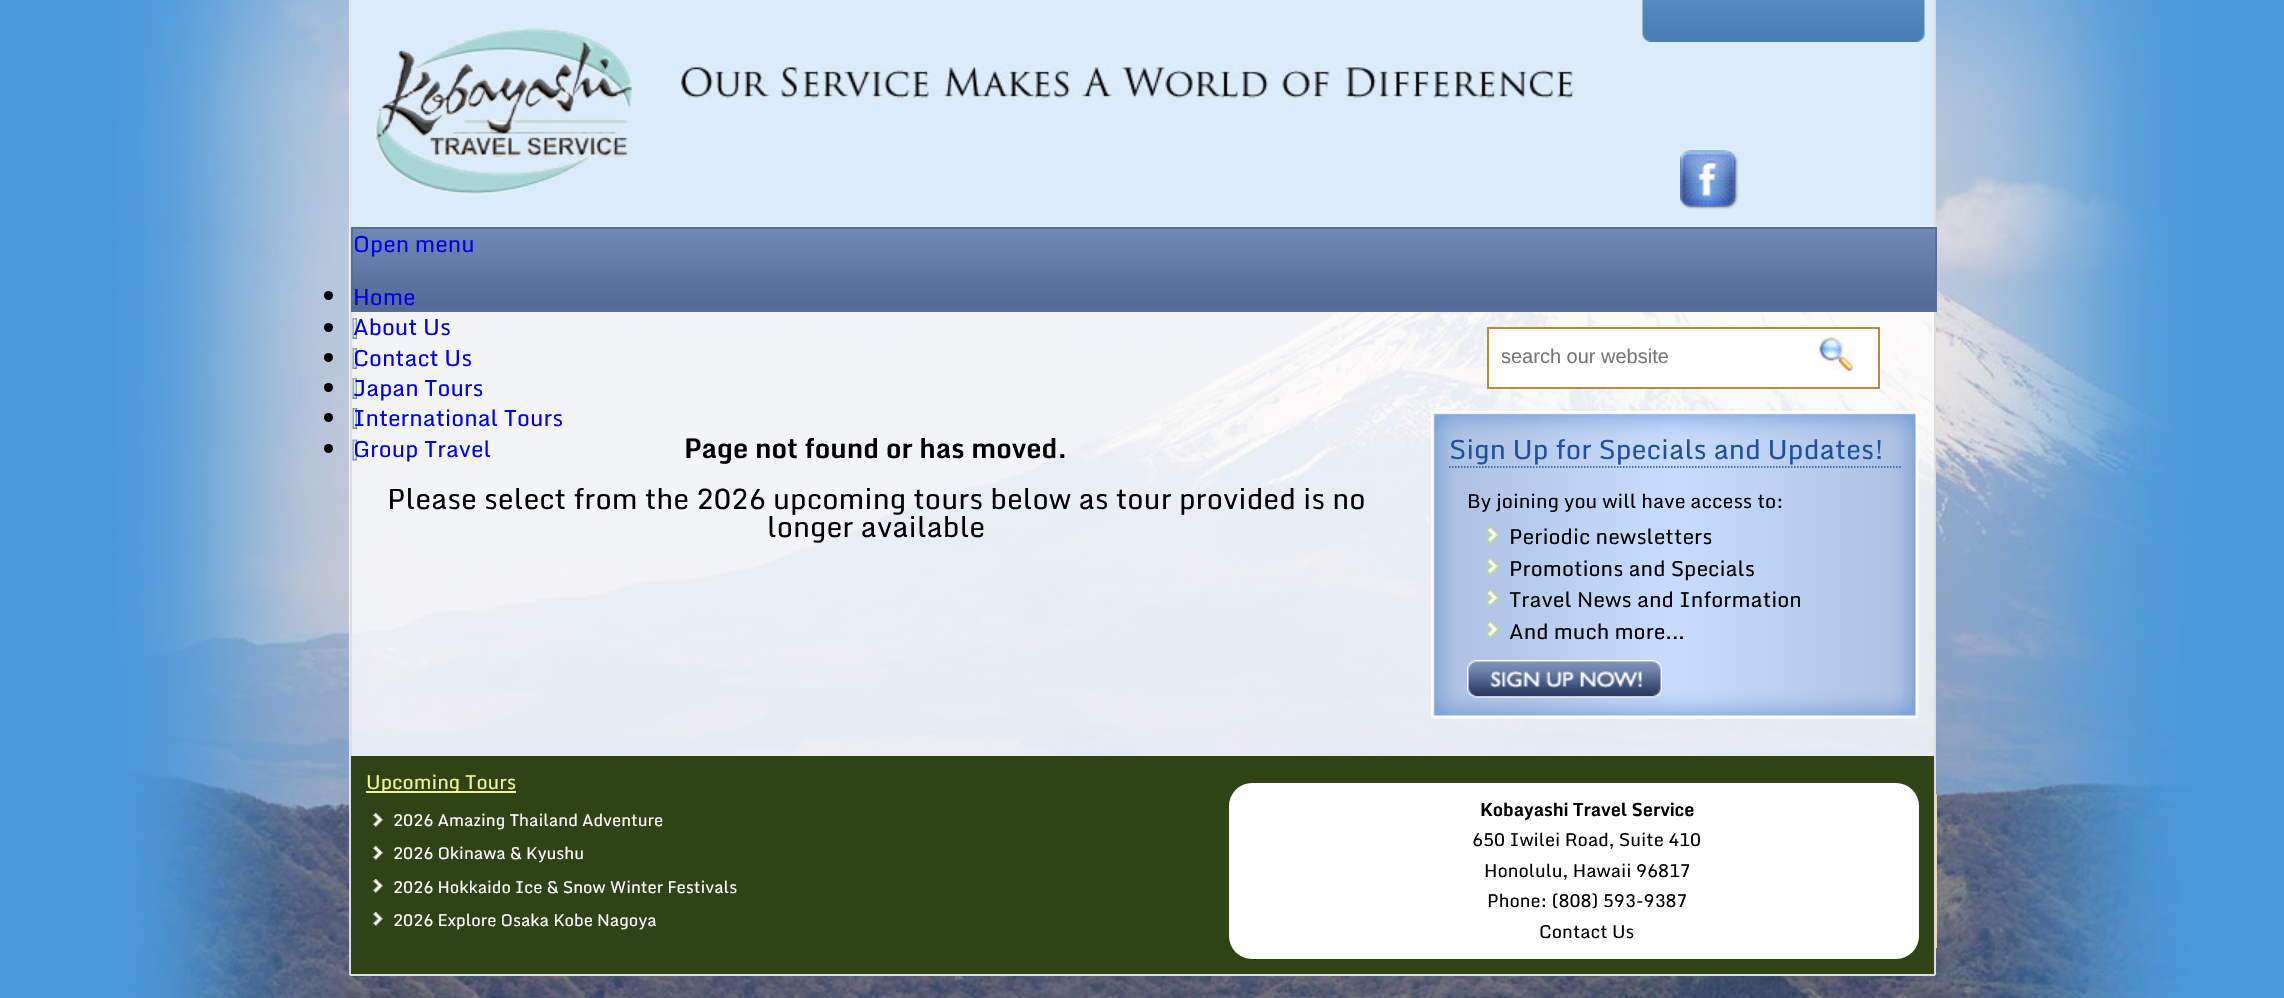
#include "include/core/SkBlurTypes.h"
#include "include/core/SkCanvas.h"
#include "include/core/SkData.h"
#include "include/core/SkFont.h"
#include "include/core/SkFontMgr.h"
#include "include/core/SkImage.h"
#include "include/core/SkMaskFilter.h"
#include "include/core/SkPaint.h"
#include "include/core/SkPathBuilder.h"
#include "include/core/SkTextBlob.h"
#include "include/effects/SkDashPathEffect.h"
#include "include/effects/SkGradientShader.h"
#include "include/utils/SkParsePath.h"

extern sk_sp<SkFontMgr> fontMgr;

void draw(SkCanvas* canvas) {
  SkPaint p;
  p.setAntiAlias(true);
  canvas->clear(SkColorSetRGB(74, 153, 219));
  canvas->drawImageRect(SkImages::DeferredFromEncodedData(SkData::MakeFromFileName("images/1.png")), SkRect::MakeLTRB(116, 0, 2191, 998), SkSamplingOptions());
  p.setColor(SkColorSetARGB(199, 255, 255, 255));
  canvas->drawRect(SkRect::MakeLTRB(349, 0, 1934, 975), p);
  p.setColor(SkColorSetRGB(221, 221, 221));
  canvas->drawRect(SkRect::MakeLTRB(1934, 0, 1936, 975), p);
  canvas->drawRect(SkRect::MakeLTRB(350, 974, 1935, 976), p);
  canvas->drawRect(SkRect::MakeLTRB(350, 0, 352, 975), p);
  p.setColor(SkColorSetRGB(219, 236, 251));
  canvas->drawRect(SkRect::MakeLTRB(351, 0, 1934, 227), p);
  canvas->drawImageRect(SkImages::DeferredFromEncodedData(SkData::MakeFromFileName("images/2.png")), SkRect::MakeLTRB(1642, 0, 1925, 42), SkSamplingOptions());
  canvas->drawImageRect(SkImages::DeferredFromEncodedData(SkData::MakeFromFileName("images/3.png")), SkRect::MakeLTRB(374, 28, 633, 195), SkSamplingOptions());
  canvas->drawImageRect(SkImages::DeferredFromEncodedData(SkData::MakeFromFileName("images/4.png")), SkRect::MakeLTRB(681, 67, 1574, 99), SkSamplingOptions());
  canvas->drawImageRect(SkImages::DeferredFromEncodedData(SkData::MakeFromFileName("images/5.png")), SkRect::MakeLTRB(1680, 150, 1739, 210), SkSamplingOptions());
  canvas->drawImageRect(SkImages::DeferredFromEncodedData(SkData::MakeFromFileName("images/6.png")), SkRect::MakeLTRB(353, 229, 1935, 310), SkSamplingOptions());
  p.setStyle(SkPaint::kStroke_Style);
  p.setStrokeWidth(2);
  p.setColor(SkColorSetRGB(86, 110, 152));
  canvas->drawRect(SkRect::MakeLTRB(352, 228, 1936, 311), p);
  p.setStyle(SkPaint::kFill_Style);
  p.setColor(SK_ColorBLACK);
  canvas->drawCircle(328.5f, 295.5f, 4.5f, p);
  canvas->drawImageRect(SkImages::DeferredFromEncodedData(SkData::MakeFromFileName("images/7.png")), SkRect::MakeLTRB(352, 318, 357, 339), SkSamplingOptions());
  canvas->drawCircle(328.5f, 327.5f, 4.5f, p);
  canvas->drawImageRect(SkImages::DeferredFromEncodedData(SkData::MakeFromFileName("images/8.png")), SkRect::MakeLTRB(352, 348, 357, 369), SkSamplingOptions());
  canvas->drawCircle(328.5f, 357.5f, 4.5f, p);
  canvas->drawImageRect(SkImages::DeferredFromEncodedData(SkData::MakeFromFileName("images/9.png")), SkRect::MakeLTRB(352, 378, 357, 399), SkSamplingOptions());
  canvas->drawCircle(328.5f, 387.5f, 4.5f, p);
  canvas->drawImageRect(SkImages::DeferredFromEncodedData(SkData::MakeFromFileName("images/9.png")), SkRect::MakeLTRB(352, 408, 357, 429), SkSamplingOptions());
  canvas->drawCircle(328.5f, 417.5f, 4.5f, p);
  canvas->drawImageRect(SkImages::DeferredFromEncodedData(SkData::MakeFromFileName("images/10.png")), SkRect::MakeLTRB(352, 439, 357, 461), SkSamplingOptions());
  canvas->drawCircle(328.5f, 448.5f, 4.5f, p);
  p.setColor(SK_ColorWHITE);
  canvas->drawRect(SkRect::MakeLTRB(1488, 328, 1879, 388), p);
  p.setStyle(SkPaint::kStroke_Style);
  p.setColor(SkColorSetRGB(185, 139, 62));
  canvas->drawRect(SkRect::MakeLTRB(1488, 328, 1879, 388), p);
  canvas->drawImageRect(SkImages::DeferredFromEncodedData(SkData::MakeFromFileName("images/11.png")), SkRect::MakeLTRB(1819, 337, 1853, 371), SkSamplingOptions());
  canvas->drawImageRect(SkImages::DeferredFromEncodedData(SkData::MakeFromFileName("images/12.png")), SkRect::MakeLTRB(1431, 411, 1919, 719), SkSamplingOptions());
  p.setStrokeWidth(1.5f);
  p.setColor(SkColorSetRGB(32, 80, 152));
  p.setPathEffect(SkDashPathEffect::Make({{1.5f, 1.5f}}, 0));
  canvas->drawPath(SkPathBuilder().moveTo(1449, 467).lineTo(1900.5f, 467).detach(), p);
  p.setPathEffect(nullptr);
  canvas->drawImageRect(SkImages::DeferredFromEncodedData(SkData::MakeFromFileName("images/13.png")), SkRect::MakeLTRB(1486, 526, 1499, 544), SkSamplingOptions());
  canvas->drawImageRect(SkImages::DeferredFromEncodedData(SkData::MakeFromFileName("images/14.png")), SkRect::MakeLTRB(1486, 557, 1499, 575), SkSamplingOptions());
  canvas->drawImageRect(SkImages::DeferredFromEncodedData(SkData::MakeFromFileName("images/13.png")), SkRect::MakeLTRB(1486, 589, 1499, 607), SkSamplingOptions());
  canvas->drawImageRect(SkImages::DeferredFromEncodedData(SkData::MakeFromFileName("images/14.png")), SkRect::MakeLTRB(1486, 620, 1499, 638), SkSamplingOptions());
  canvas->drawImageRect(SkImages::DeferredFromEncodedData(SkData::MakeFromFileName("images/15.png")), SkRect::MakeLTRB(1467, 660, 1662, 698), SkSamplingOptions());
  p.setStyle(SkPaint::kFill_Style);
  p.setColor(SkColorSetRGB(47, 68, 22));
  canvas->drawRect(SkRect::MakeLTRB(351, 756, 1934, 974), p);
  p.setColor(SkColorSetRGB(243, 244, 146));
  canvas->drawRect(SkRect::MakeLTRB(366, 791, 516, 793), p);
  canvas->drawImageRect(SkImages::DeferredFromEncodedData(SkData::MakeFromFileName("images/16.png")), SkRect::MakeLTRB(373, 813, 383, 827), SkSamplingOptions());
  canvas->drawImageRect(SkImages::DeferredFromEncodedData(SkData::MakeFromFileName("images/16.png")), SkRect::MakeLTRB(373, 846, 383, 860), SkSamplingOptions());
  canvas->drawImageRect(SkImages::DeferredFromEncodedData(SkData::MakeFromFileName("images/16.png")), SkRect::MakeLTRB(373, 879, 383, 893), SkSamplingOptions());
  canvas->drawImageRect(SkImages::DeferredFromEncodedData(SkData::MakeFromFileName("images/16.png")), SkRect::MakeLTRB(373, 912, 383, 926), SkSamplingOptions());
  p.setColor(SK_ColorWHITE);
  canvas->drawRoundRect(SkRect::MakeLTRB(1229, 783, 1919, 959), 23, 23, p);
  p.setColor(SkColorSetRGB(227, 217, 183));
  canvas->drawRect(SkRect::MakeLTRB(1935, 794, 1937, 948), p);
  SkFont font1(fontMgr->matchFamilyStyle("Monda", SkFontStyle::Normal()), 22.5f);
  font1.setSubpixel(true);
  p.setColor(SkColorSetRGB(0, 0, 238));
  canvas->drawString("Open menu", 353, 252, font1, p);
  canvas->drawString("Home", 353, 305, font1, p);
  canvas->drawString("About Us", 353, 335, font1, p);
  canvas->drawString("Contact Us", 353, 366, font1, p);
  canvas->drawString("Japan Tours", 353, 396, font1, p);
  canvas->drawString("International Tours", 353, 426, font1, p);
  canvas->drawString("Group Travel", 353, 457, font1, p);
  canvas->save();
  canvas->clipRect(SkRect::MakeLTRB(1502, 345, 1784, 368));
  SkFont font2(fontMgr->matchFamilyStyle("Liberation Sans", SkFontStyle::Normal()), 20);
  font2.setSubpixel(true);
  p.setColor(SkColorSetRGB(117, 117, 117));
  canvas->drawString("search our website", 1501, 363, font2, p);
  canvas->restore();
  SkFont font3(fontMgr->matchFamilyStyle("Monda", SkFontStyle::Normal()), 27);
  font3.setSubpixel(true);
  p.setColor(SkColorSetRGB(32, 80, 152));
  canvas->drawString("Sign Up for Specials and Updates!", 1449, 459, font3, p);
  SkFont font4(fontMgr->matchFamilyStyle("Monda", SkFontStyle::Normal()), 19.5f);
  font4.setSubpixel(true);
  p.setColor(SK_ColorBLACK);
  canvas->drawString("By joining you will have access to:", 1467, 508, font4, p);
  SkFont font5(fontMgr->matchFamilyStyle("Monda", SkFontStyle::Normal()), 21);
  font5.setSubpixel(true);
  canvas->drawString("Periodic newsletters", 1509, 544, font5, p);
  canvas->drawString("Promotions and Specials", 1509, 576, font5, p);
  canvas->drawString("Travel News and Information", 1509, 607, font5, p);
  canvas->drawString("And much more...", 1509, 639, font5, p);
  SkFont font6(fontMgr->matchFamilyStyle("Monda", SkFontStyle::Bold()), 27);
  font6.setSubpixel(true);
  canvas->drawString("Page not found or has moved.", 684, 458, font6, p);
  SkFont font7(fontMgr->matchFamilyStyle("Monda", SkFontStyle::Normal()), 28.5f);
  font7.setSubpixel(true);
  canvas->drawString("Please select from the 2026 upcoming tours below as tour provided is no", 387, 509, font7, p);
  canvas->drawString("longer available", 767, 537, font7, p);
  p.setColor(SkColorSetRGB(243, 244, 146));
  canvas->drawString("Upcoming Tours", 366, 789, font4, p);
  SkFont font8(fontMgr->matchFamilyStyle("Monda", SkFontStyle::Normal()), 16.5f);
  font8.setSubpixel(true);
  p.setColor(SK_ColorWHITE);
  canvas->drawString("2026 Amazing Thailand Adventure", 393, 826, font8, p);
  canvas->drawString("2026 Okinawa & Kyushu", 393, 859, font8, p);
  canvas->drawString("2026 Hokkaido Ice & Snow Winter Festivals", 393, 893, font8, p);
  canvas->drawString("2026 Explore Osaka Kobe Nagoya", 393, 926, font8, p);
  SkFont font9(fontMgr->matchFamilyStyle("Monda", SkFontStyle::Bold()), 18);
  font9.setSubpixel(true);
  p.setColor(SK_ColorBLACK);
  canvas->drawString("Kobayashi Travel Service", 1480, 816, font9, p);
  SkFont font10(fontMgr->matchFamilyStyle("Monda", SkFontStyle::Normal()), 18);
  font10.setSubpixel(true);
  canvas->drawString("650 Iwilei Road, Suite 410", 1472, 846, font10, p);
  canvas->drawString("Honolulu, Hawaii 96817", 1484, 877, font10, p);
  canvas->drawString("Phone: (808) 593-9387", 1487, 907, font10, p);
  canvas->drawString("Contact Us", 1539, 938, font10, p);
}
